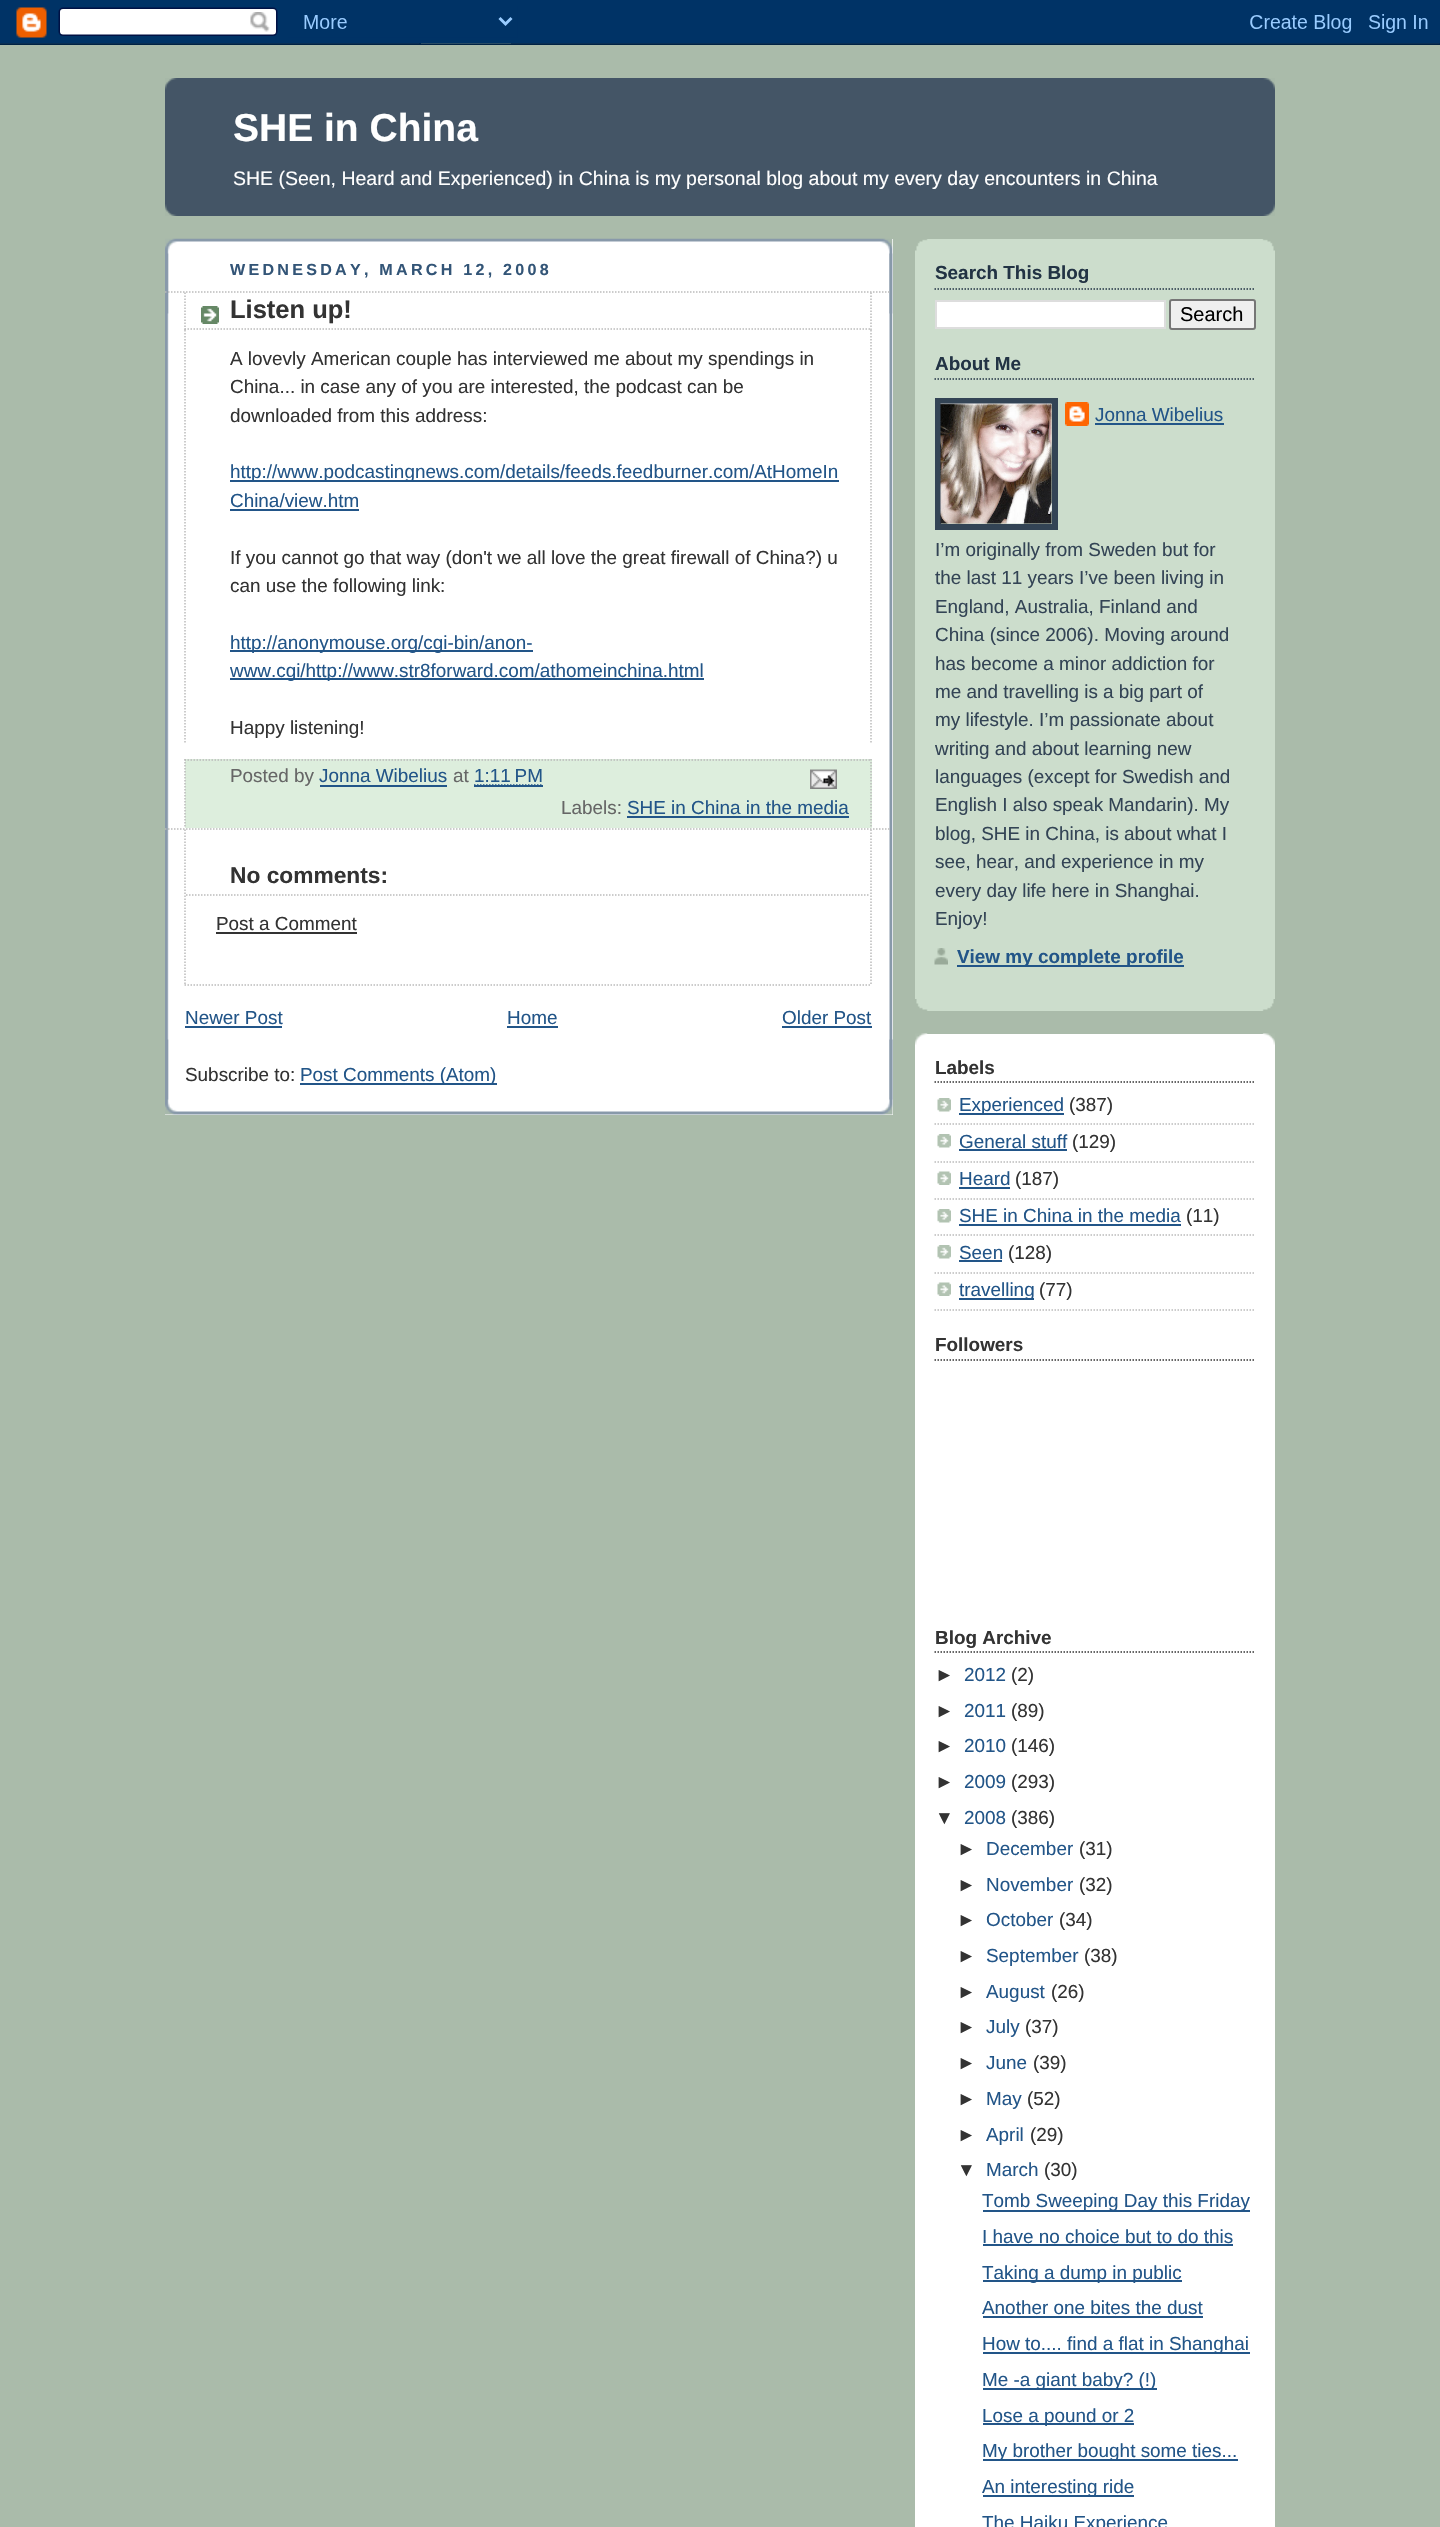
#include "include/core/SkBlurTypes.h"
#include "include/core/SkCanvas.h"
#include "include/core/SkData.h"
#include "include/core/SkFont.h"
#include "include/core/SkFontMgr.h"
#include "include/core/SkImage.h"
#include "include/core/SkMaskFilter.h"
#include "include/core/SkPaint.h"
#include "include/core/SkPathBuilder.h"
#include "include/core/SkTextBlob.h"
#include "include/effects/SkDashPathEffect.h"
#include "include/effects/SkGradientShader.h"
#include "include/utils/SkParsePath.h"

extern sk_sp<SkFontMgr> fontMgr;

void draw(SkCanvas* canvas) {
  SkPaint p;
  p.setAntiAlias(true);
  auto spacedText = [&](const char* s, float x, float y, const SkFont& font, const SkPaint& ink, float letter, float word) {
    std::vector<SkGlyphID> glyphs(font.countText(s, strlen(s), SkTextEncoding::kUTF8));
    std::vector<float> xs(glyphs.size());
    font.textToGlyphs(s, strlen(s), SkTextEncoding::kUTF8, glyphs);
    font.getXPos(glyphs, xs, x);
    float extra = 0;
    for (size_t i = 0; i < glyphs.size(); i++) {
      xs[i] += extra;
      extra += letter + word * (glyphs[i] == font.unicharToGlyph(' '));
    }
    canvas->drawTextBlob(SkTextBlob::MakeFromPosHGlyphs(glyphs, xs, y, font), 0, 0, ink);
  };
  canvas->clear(SkColorSetRGB(170, 187, 170));
  canvas->drawImageRect(SkImages::DeferredFromEncodedData(SkData::MakeFromFileName("images/1.png")), SkRect::MakeLTRB(0, 0, 1440, 45), SkSamplingOptions());
  p.setColor(SkColorSetRGB(68, 85, 102));
  canvas->drawRect(SkRect::MakeLTRB(165, 78, 1275, 216), p);
  canvas->drawImageRect(SkImages::DeferredFromEncodedData(SkData::MakeFromFileName("images/2.png")), SkRect::MakeLTRB(165, 78, 1275, 90), SkSamplingOptions());
  canvas->drawImageRect(SkImages::DeferredFromEncodedData(SkData::MakeFromFileName("images/3.png")), SkRect::MakeLTRB(165, 204, 1275, 216), SkSamplingOptions());
  p.setColor(SK_ColorWHITE);
  canvas->drawRect(SkRect::MakeLTRB(165, 239, 893, 1115), p);
  canvas->drawImageRect(SkImages::DeferredFromEncodedData(SkData::MakeFromFileName("images/4.png")), SkRect::MakeLTRB(165, 1039, 893, 1115), SkSamplingOptions());
  canvas->drawImageRect(SkImages::DeferredFromEncodedData(SkData::MakeFromFileName("images/5.png")), SkRect::MakeLTRB(165, 238, 893, 314), SkSamplingOptions());
  canvas->drawImageRect(SkImages::DeferredFromEncodedData(SkData::MakeFromFileName("images/6.png")), SkRect::MakeLTRB(165, 253, 893, 1100), SkSamplingOptions());
  p.setStyle(SkPaint::kStroke_Style);
  p.setStrokeWidth(1.5f);
  p.setColor(SkColorSetRGB(187, 187, 187));
  p.setPathEffect(SkDashPathEffect::Make({{1.5f, 1.5f}}, 0));
  canvas->drawPath(SkPathBuilder().moveTo(165, 292).lineTo(891, 292).detach(), p);
  p.setPathEffect(nullptr);
  p.setPathEffect(SkDashPathEffect::Make({{1.5f, 1.5f}}, 0));
  canvas->drawPath(SkPathBuilder().moveTo(165, 829).lineTo(891, 829).detach(), p);
  p.setPathEffect(nullptr);
  canvas->drawImageRect(SkImages::DeferredFromEncodedData(SkData::MakeFromFileName("images/7.png")), SkRect::MakeLTRB(201, 306, 219, 324), SkSamplingOptions());
  p.setPathEffect(SkDashPathEffect::Make({{1.5f, 1.5f}}, 0));
  canvas->drawPath(SkPathBuilder().moveTo(871, 292.5f).lineTo(871, 330).detach(), p);
  p.setPathEffect(nullptr);
  p.setPathEffect(SkDashPathEffect::Make({{1.5f, 1.5f}}, 0));
  canvas->drawPath(SkPathBuilder().moveTo(184.5f, 329).lineTo(871.5f, 329).detach(), p);
  p.setPathEffect(nullptr);
  p.setPathEffect(SkDashPathEffect::Make({{1.5f, 1.5f}}, 0));
  canvas->drawPath(SkPathBuilder().moveTo(185, 292.5f).lineTo(185, 330).detach(), p);
  p.setPathEffect(nullptr);
  p.setPathEffect(SkDashPathEffect::Make({{1.5f, 1.5f}}, 0));
  canvas->drawPath(SkPathBuilder().moveTo(871, 330).lineTo(871, 744).detach(), p);
  p.setPathEffect(nullptr);
  p.setPathEffect(SkDashPathEffect::Make({{1.5f, 1.5f}}, 0));
  canvas->drawPath(SkPathBuilder().moveTo(185, 330).lineTo(185, 744).detach(), p);
  p.setPathEffect(nullptr);
  p.setStyle(SkPaint::kFill_Style);
  p.setColor(SkColorSetRGB(34, 85, 136));
  canvas->drawRect(SkRect::MakeLTRB(230, 480, 839, 482), p);
  canvas->drawRect(SkRect::MakeLTRB(230, 509, 359, 511), p);
  canvas->drawRect(SkRect::MakeLTRB(230, 650, 533, 652), p);
  canvas->drawRect(SkRect::MakeLTRB(230, 678, 704, 680), p);
  p.setColor(SkColorSetRGB(221, 238, 221));
  canvas->drawRect(SkRect::MakeLTRB(185, 759, 872, 828), p);
  p.setStyle(SkPaint::kStroke_Style);
  p.setColor(SkColorSetRGB(187, 187, 187));
  p.setPathEffect(SkDashPathEffect::Make({{1.5f, 1.5f}}, 0));
  canvas->drawPath(SkPathBuilder().moveTo(184.5f, 760).lineTo(871.5f, 760).detach(), p);
  p.setPathEffect(nullptr);
  p.setPathEffect(SkDashPathEffect::Make({{1.5f, 1.5f}}, 0));
  canvas->drawPath(SkPathBuilder().moveTo(871, 759).lineTo(871, 828).detach(), p);
  p.setPathEffect(nullptr);
  p.setPathEffect(SkDashPathEffect::Make({{1.5f, 1.5f}}, 0));
  canvas->drawPath(SkPathBuilder().moveTo(185, 759).lineTo(185, 828).detach(), p);
  p.setPathEffect(nullptr);
  p.setStyle(SkPaint::kFill_Style);
  p.setColor(SkColorSetRGB(34, 85, 136));
  canvas->drawRect(SkRect::MakeLTRB(320, 785, 447, 787), p);
  p.setStyle(SkPaint::kStroke_Style);
  p.setPathEffect(SkDashPathEffect::Make({{1.5f, 1.5f}}, 0));
  canvas->drawPath(SkPathBuilder().moveTo(474, 785).lineTo(543, 785).detach(), p);
  p.setPathEffect(nullptr);
  p.setStyle(SkPaint::kFill_Style);
  canvas->drawRect(SkRect::MakeLTRB(474, 785, 543, 787), p);
  canvas->drawImageRect(SkImages::DeferredFromEncodedData(SkData::MakeFromFileName("images/8.png")), SkRect::MakeLTRB(810, 769, 837, 789), SkSamplingOptions());
  canvas->drawRect(SkRect::MakeLTRB(627, 816, 849, 818), p);
  p.setStyle(SkPaint::kStroke_Style);
  p.setColor(SkColorSetRGB(187, 187, 187));
  p.setPathEffect(SkDashPathEffect::Make({{1.5f, 1.5f}}, 0));
  canvas->drawPath(SkPathBuilder().moveTo(871, 829.5f).lineTo(871, 985.5f).detach(), p);
  p.setPathEffect(nullptr);
  p.setPathEffect(SkDashPathEffect::Make({{1.5f, 1.5f}}, 0));
  canvas->drawPath(SkPathBuilder().moveTo(184.5f, 985).lineTo(871.5f, 985).detach(), p);
  p.setPathEffect(nullptr);
  p.setPathEffect(SkDashPathEffect::Make({{1.5f, 1.5f}}, 0));
  canvas->drawPath(SkPathBuilder().moveTo(185, 829.5f).lineTo(185, 985.5f).detach(), p);
  p.setPathEffect(nullptr);
  p.setPathEffect(SkDashPathEffect::Make({{1.5f, 1.5f}}, 0));
  canvas->drawPath(SkPathBuilder().moveTo(186, 895).lineTo(870, 895).detach(), p);
  p.setPathEffect(nullptr);
  p.setStyle(SkPaint::kFill_Style);
  p.setColor(SkColorSetRGB(51, 51, 51));
  canvas->drawRect(SkRect::MakeLTRB(216, 932, 357, 934), p);
  p.setColor(SkColorSetRGB(34, 85, 136));
  canvas->drawRect(SkRect::MakeLTRB(185, 1026, 282, 1028), p);
  canvas->drawRect(SkRect::MakeLTRB(507, 1026, 558, 1028), p);
  canvas->drawRect(SkRect::MakeLTRB(782, 1026, 872, 1028), p);
  canvas->drawRect(SkRect::MakeLTRB(300, 1083, 497, 1085), p);
  p.setColor(SkColorSetRGB(204, 221, 204));
  canvas->drawRect(SkRect::MakeLTRB(915, 239, 1275, 1011), p);
  canvas->drawImageRect(SkImages::DeferredFromEncodedData(SkData::MakeFromFileName("images/9.png")), SkRect::MakeLTRB(915, 999, 1275, 1011), SkSamplingOptions());
  canvas->drawImageRect(SkImages::DeferredFromEncodedData(SkData::MakeFromFileName("images/10.png")), SkRect::MakeLTRB(915, 239, 1275, 251), SkSamplingOptions());
  p.setStyle(SkPaint::kStroke_Style);
  p.setColor(SkColorSetRGB(34, 51, 68));
  p.setPathEffect(SkDashPathEffect::Make({{1.5f, 1.5f}}, 0));
  canvas->drawPath(SkPathBuilder().moveTo(934.5f, 289).lineTo(1255.5f, 289).detach(), p);
  p.setPathEffect(nullptr);
  p.setStyle(SkPaint::kFill_Style);
  p.setColor(SK_ColorWHITE);
  canvas->drawRect(SkRect::MakeLTRB(936, 301, 1165, 328), p);
  p.setStyle(SkPaint::kStroke_Style);
  p.setStrokeWidth(2);
  p.setColor(SkColorSetRGB(221, 221, 221));
  canvas->drawRect(SkRect::MakeLTRB(936, 301, 1165, 328), p);
  p.setStyle(SkPaint::kFill_Style);
  p.setColor(SkColorSetRGB(239, 239, 239));
  canvas->drawRoundRect(SkRect::MakeLTRB(1170, 300, 1255, 329), 2, 2, p);
  p.setStyle(SkPaint::kStroke_Style);
  p.setColor(SkColorSetRGB(118, 118, 118));
  canvas->drawRoundRect(SkRect::MakeLTRB(1170, 300, 1255, 329), 2, 2, p);
  p.setStrokeWidth(1.5f);
  p.setColor(SkColorSetRGB(34, 51, 68));
  p.setPathEffect(SkDashPathEffect::Make({{1.5f, 1.5f}}, 0));
  canvas->drawPath(SkPathBuilder().moveTo(934.5f, 379).lineTo(1255.5f, 379).detach(), p);
  p.setPathEffect(nullptr);
  p.setStrokeWidth(6);
  p.setColor(SkColorSetRGB(51, 68, 85));
  canvas->drawRect(SkRect::MakeLTRB(938, 401, 1055, 527), p);
  canvas->drawImageRect(SkImages::DeferredFromEncodedData(SkData::MakeFromFileName("images/11.png")), SkRect::MakeLTRB(940, 403, 1052, 524), SkSamplingOptions());
  canvas->drawImageRect(SkImages::DeferredFromEncodedData(SkData::MakeFromFileName("images/12.png")), SkRect::MakeLTRB(1065, 402, 1089, 426), SkSamplingOptions());
  p.setStyle(SkPaint::kFill_Style);
  p.setColor(SkColorSetRGB(34, 85, 136));
  canvas->drawRect(SkRect::MakeLTRB(1095, 423, 1224, 425), p);
  canvas->drawImageRect(SkImages::DeferredFromEncodedData(SkData::MakeFromFileName("images/13.png")), SkRect::MakeLTRB(934, 948, 948, 965), SkSamplingOptions());
  canvas->drawRect(SkRect::MakeLTRB(957, 965, 1184, 967), p);
  p.setColor(SK_ColorWHITE);
  canvas->drawRect(SkRect::MakeLTRB(915, 1034, 1275, 2527), p);
  canvas->drawImageRect(SkImages::DeferredFromEncodedData(SkData::MakeFromFileName("images/14.png")), SkRect::MakeLTRB(915, 1033, 1275, 1045), SkSamplingOptions());
  p.setStyle(SkPaint::kStroke_Style);
  p.setStrokeWidth(1.5f);
  p.setColor(SkColorSetRGB(51, 51, 51));
  p.setPathEffect(SkDashPathEffect::Make({{1.5f, 1.5f}}, 0));
  canvas->drawPath(SkPathBuilder().moveTo(934.5f, 1082).lineTo(1255.5f, 1082).detach(), p);
  p.setPathEffect(nullptr);
  canvas->drawImageRect(SkImages::DeferredFromEncodedData(SkData::MakeFromFileName("images/15.png")), SkRect::MakeLTRB(937, 1098, 951, 1112), SkSamplingOptions());
  p.setColor(SkColorSetRGB(187, 187, 187));
  p.setPathEffect(SkDashPathEffect::Make({{1.5f, 1.5f}}, 0));
  canvas->drawPath(SkPathBuilder().moveTo(934.5f, 1124).lineTo(1255.5f, 1124).detach(), p);
  p.setPathEffect(nullptr);
  p.setStyle(SkPaint::kFill_Style);
  p.setColor(SkColorSetRGB(34, 85, 136));
  canvas->drawRect(SkRect::MakeLTRB(959, 1113, 1064, 1115), p);
  canvas->drawImageRect(SkImages::DeferredFromEncodedData(SkData::MakeFromFileName("images/15.png")), SkRect::MakeLTRB(937, 1134, 951, 1148), SkSamplingOptions());
  p.setStyle(SkPaint::kStroke_Style);
  p.setColor(SkColorSetRGB(187, 187, 187));
  p.setPathEffect(SkDashPathEffect::Make({{1.5f, 1.5f}}, 0));
  canvas->drawPath(SkPathBuilder().moveTo(934.5f, 1162).lineTo(1255.5f, 1162).detach(), p);
  p.setPathEffect(nullptr);
  p.setStyle(SkPaint::kFill_Style);
  p.setColor(SkColorSetRGB(34, 85, 136));
  canvas->drawRect(SkRect::MakeLTRB(959, 1149, 1067, 1151), p);
  canvas->drawImageRect(SkImages::DeferredFromEncodedData(SkData::MakeFromFileName("images/16.png")), SkRect::MakeLTRB(937, 1171, 951, 1185), SkSamplingOptions());
  p.setStyle(SkPaint::kStroke_Style);
  p.setColor(SkColorSetRGB(187, 187, 187));
  p.setPathEffect(SkDashPathEffect::Make({{1.5f, 1.5f}}, 0));
  canvas->drawPath(SkPathBuilder().moveTo(934.5f, 1199).lineTo(1255.5f, 1199).detach(), p);
  p.setPathEffect(nullptr);
  p.setStyle(SkPaint::kFill_Style);
  p.setColor(SkColorSetRGB(34, 85, 136));
  canvas->drawRect(SkRect::MakeLTRB(959, 1187, 1010, 1189), p);
  canvas->drawImageRect(SkImages::DeferredFromEncodedData(SkData::MakeFromFileName("images/15.png")), SkRect::MakeLTRB(937, 1209, 951, 1223), SkSamplingOptions());
  p.setStyle(SkPaint::kStroke_Style);
  p.setColor(SkColorSetRGB(187, 187, 187));
  p.setPathEffect(SkDashPathEffect::Make({{1.5f, 1.5f}}, 0));
  canvas->drawPath(SkPathBuilder().moveTo(934.5f, 1235).lineTo(1255.5f, 1235).detach(), p);
  p.setPathEffect(nullptr);
  p.setStyle(SkPaint::kFill_Style);
  p.setColor(SkColorSetRGB(34, 85, 136));
  canvas->drawRect(SkRect::MakeLTRB(959, 1224, 1181, 1226), p);
  canvas->drawImageRect(SkImages::DeferredFromEncodedData(SkData::MakeFromFileName("images/15.png")), SkRect::MakeLTRB(937, 1245, 951, 1259), SkSamplingOptions());
  p.setStyle(SkPaint::kStroke_Style);
  p.setColor(SkColorSetRGB(187, 187, 187));
  p.setPathEffect(SkDashPathEffect::Make({{1.5f, 1.5f}}, 0));
  canvas->drawPath(SkPathBuilder().moveTo(934.5f, 1273).lineTo(1255.5f, 1273).detach(), p);
  p.setPathEffect(nullptr);
  p.setStyle(SkPaint::kFill_Style);
  p.setColor(SkColorSetRGB(34, 85, 136));
  canvas->drawRect(SkRect::MakeLTRB(959, 1260, 1002, 1262), p);
  canvas->drawImageRect(SkImages::DeferredFromEncodedData(SkData::MakeFromFileName("images/16.png")), SkRect::MakeLTRB(937, 1282, 951, 1296), SkSamplingOptions());
  p.setStyle(SkPaint::kStroke_Style);
  p.setColor(SkColorSetRGB(187, 187, 187));
  p.setPathEffect(SkDashPathEffect::Make({{1.5f, 1.5f}}, 0));
  canvas->drawPath(SkPathBuilder().moveTo(934.5f, 1310).lineTo(1255.5f, 1310).detach(), p);
  p.setPathEffect(nullptr);
  p.setStyle(SkPaint::kFill_Style);
  p.setColor(SkColorSetRGB(34, 85, 136));
  canvas->drawRect(SkRect::MakeLTRB(959, 1298, 1034, 1300), p);
  p.setStyle(SkPaint::kStroke_Style);
  p.setColor(SkColorSetRGB(51, 51, 51));
  p.setPathEffect(SkDashPathEffect::Make({{1.5f, 1.5f}}, 0));
  canvas->drawPath(SkPathBuilder().moveTo(934.5f, 1360).lineTo(1255.5f, 1360).detach(), p);
  p.setPathEffect(nullptr);
  p.setPathEffect(SkDashPathEffect::Make({{1.5f, 1.5f}}, 0));
  canvas->drawPath(SkPathBuilder().moveTo(934.5f, 1652).lineTo(1255.5f, 1652).detach(), p);
  p.setPathEffect(nullptr);
  p.setStyle(SkPaint::kFill_Style);
  p.setColor(SkColorSetRGB(34, 85, 136));
  canvas->drawRect(SkRect::MakeLTRB(983, 2210, 1250, 2212), p);
  canvas->drawRect(SkRect::MakeLTRB(983, 2244, 1233, 2246), p);
  canvas->drawRect(SkRect::MakeLTRB(983, 2280, 1182, 2282), p);
  canvas->drawRect(SkRect::MakeLTRB(983, 2316, 1203, 2318), p);
  canvas->drawRect(SkRect::MakeLTRB(983, 2352, 1250, 2354), p);
  canvas->drawRect(SkRect::MakeLTRB(983, 2388, 1157, 2390), p);
  canvas->drawRect(SkRect::MakeLTRB(983, 2423, 1134, 2425), p);
  canvas->drawRect(SkRect::MakeLTRB(983, 2459, 1238, 2461), p);
  canvas->drawRect(SkRect::MakeLTRB(983, 2495, 1134, 2497), p);
  SkFont font1(fontMgr->matchFamilyStyle("Liberation Sans", SkFontStyle::Bold()), 39);
  font1.setSubpixel(true);
  p.setColor(SK_ColorWHITE);
  canvas->drawString("SHE in China", 233, 141, font1, p);
  SkFont font2(fontMgr->matchFamilyStyle("Liberation Sans", SkFontStyle::Normal()), 19.5f);
  font2.setSubpixel(true);
  canvas->drawString("SHE (Seen, Heard and Experienced) in China is my personal blog about my every day encounters in China", 233, 185, font2, p);
  SkFont font3(fontMgr->matchFamilyStyle("Liberation Sans", SkFontStyle::Bold()), 16.1f);
  font3.setSubpixel(true);
  p.setColor(SkColorSetRGB(51, 85, 119));
  spacedText("WEDNESDAY, MARCH 12, 2008", 230, 275, font3, p, 3.25f, 0);
  SkFont font4(fontMgr->matchFamilyStyle("Liberation Sans", SkFontStyle::Bold()), 25.5f);
  font4.setSubpixel(true);
  p.setColor(SkColorSetRGB(51, 51, 51));
  canvas->drawString("Listen up!", 230, 318, font4, p);
  SkFont font5(fontMgr->matchFamilyStyle("Liberation Sans", SkFontStyle::Normal()), 18.9f);
  font5.setSubpixel(true);
  canvas->drawString("A lovevly American couple has interviewed me about my spendings in", 230, 365, font5, p);
  canvas->drawString("China... in case any of you are interested, the podcast can be", 230, 393, font5, p);
  canvas->drawString("downloaded from this address:", 230, 422, font5, p);
  p.setColor(SkColorSetRGB(34, 85, 136));
  canvas->drawString("http://www.podcastingnews.com/details/feeds.feedburner.com/AtHomeIn", 230, 478, font5, p);
  canvas->drawString("China/view.htm", 230, 507, font5, p);
  p.setColor(SkColorSetRGB(51, 51, 51));
  canvas->drawString("If you cannot go that way (don't we all love the great firewall of China?) u", 230, 564, font5, p);
  canvas->drawString("can use the following link:", 230, 592, font5, p);
  p.setColor(SkColorSetRGB(34, 85, 136));
  canvas->drawString("http://anonymouse.org/cgi-bin/anon-", 230, 649, font5, p);
  canvas->drawString("www.cgi/http://www.str8forward.com/athomeinchina.html", 230, 677, font5, p);
  p.setColor(SkColorSetRGB(51, 51, 51));
  canvas->drawString("Happy listening!", 230, 734, font5, p);
  p.setColor(SkColorSetRGB(102, 102, 102));
  canvas->drawString("Posted by", 230, 782, font5, p);
  p.setColor(SkColorSetRGB(34, 85, 136));
  canvas->drawString("Jonna Wibelius", 319, 782, font5, p);
  p.setColor(SkColorSetRGB(102, 102, 102));
  canvas->drawString("at", 453, 782, font5, p);
  p.setColor(SkColorSetRGB(34, 85, 136));
  canvas->drawString("1:11 PM", 474, 782, font5, p);
  p.setColor(SkColorSetRGB(102, 102, 102));
  canvas->drawString("Labels:", 561, 814, font5, p);
  p.setColor(SkColorSetRGB(34, 85, 136));
  canvas->drawString("SHE in China in the media", 627, 814, font5, p);
  SkFont font6(fontMgr->matchFamilyStyle("Liberation Sans", SkFontStyle::Bold()), 22.75f);
  font6.setSubpixel(true);
  p.setColor(SkColorSetRGB(51, 51, 51));
  canvas->drawString("No comments:", 230, 883, font6, p);
  canvas->drawString("Post a Comment", 216, 930, font5, p);
  p.setColor(SkColorSetRGB(34, 85, 136));
  canvas->drawString("Newer Post", 185, 1024, font5, p);
  canvas->drawString("Home", 507, 1024, font5, p);
  canvas->drawString("Older Post", 782, 1024, font5, p);
  p.setColor(SkColorSetRGB(51, 51, 51));
  canvas->drawString("Subscribe to:", 185, 1081, font5, p);
  p.setColor(SkColorSetRGB(34, 85, 136));
  canvas->drawString("Post Comments (Atom)", 300, 1081, font5, p);
  SkFont font7(fontMgr->matchFamilyStyle("Liberation Sans", SkFontStyle::Bold()), 18.9f);
  font7.setSubpixel(true);
  p.setColor(SkColorSetRGB(34, 51, 68));
  canvas->drawString("Search This Blog", 935, 279, font7, p);
  SkFont font8(fontMgr->matchFamilyStyle("Liberation Sans", SkFontStyle::Normal()), 20);
  font8.setSubpixel(true);
  p.setColor(SK_ColorBLACK);
  canvas->drawString("Search", 1180, 321, font8, p);
  p.setColor(SkColorSetRGB(34, 51, 68));
  canvas->drawString("About Me", 935, 370, font7, p);
  p.setColor(SkColorSetRGB(34, 85, 136));
  canvas->drawString("Jonna Wibelius", 1095, 421, font5, p);
  p.setColor(SkColorSetRGB(51, 68, 85));
  canvas->drawString("I’m originally from Sweden but for", 935, 556, font5, p);
  canvas->drawString("the last 11 years I’ve been living in", 935, 584, font5, p);
  canvas->drawString("England, Australia, Finland and", 935, 613, font5, p);
  canvas->drawString("China (since 2006). Moving around", 935, 641, font5, p);
  canvas->drawString("has become a minor addiction for", 935, 670, font5, p);
  canvas->drawString("me and travelling is a big part of", 935, 698, font5, p);
  canvas->drawString("my lifestyle. I’m passionate about", 935, 726, font5, p);
  canvas->drawString("writing and about learning new", 935, 755, font5, p);
  canvas->drawString("languages (except for Swedish and", 935, 783, font5, p);
  canvas->drawString("English I also speak Mandarin). My", 935, 811, font5, p);
  canvas->drawString("blog, SHE in China, is about what I", 935, 840, font5, p);
  canvas->drawString("see, hear, and experience in my", 935, 868, font5, p);
  canvas->drawString("every day life here in Shanghai.", 935, 897, font5, p);
  canvas->drawString("Enjoy!", 935, 925, font5, p);
  p.setColor(SkColorSetRGB(34, 85, 136));
  canvas->drawString("View my complete profile", 957, 963, font7, p);
  p.setColor(SkColorSetRGB(51, 51, 51));
  canvas->drawString("Labels", 935, 1074, font7, p);
  p.setColor(SkColorSetRGB(34, 85, 136));
  canvas->drawString("Experienced", 959, 1111, font5, p);
  p.setColor(SkColorSetRGB(51, 51, 51));
  canvas->drawString("(387)", 1069, 1111, font5, p);
  p.setColor(SkColorSetRGB(34, 85, 136));
  canvas->drawString("General stuff", 959, 1148, font5, p);
  p.setColor(SkColorSetRGB(51, 51, 51));
  canvas->drawString("(129)", 1072, 1148, font5, p);
  p.setColor(SkColorSetRGB(34, 85, 136));
  canvas->drawString("Heard", 959, 1185, font5, p);
  p.setColor(SkColorSetRGB(51, 51, 51));
  canvas->drawString("(187)", 1015, 1185, font5, p);
  p.setColor(SkColorSetRGB(34, 85, 136));
  canvas->drawString("SHE in China in the media", 959, 1222, font5, p);
  p.setColor(SkColorSetRGB(51, 51, 51));
  canvas->drawString("(11)", 1186, 1222, font5, p);
  p.setColor(SkColorSetRGB(34, 85, 136));
  canvas->drawString("Seen", 959, 1259, font5, p);
  p.setColor(SkColorSetRGB(51, 51, 51));
  canvas->drawString("(128)", 1008, 1259, font5, p);
  p.setColor(SkColorSetRGB(34, 85, 136));
  canvas->drawString("travelling", 959, 1296, font5, p);
  p.setColor(SkColorSetRGB(51, 51, 51));
  canvas->drawString("(77)", 1039, 1296, font5, p);
  canvas->drawString("Followers", 935, 1351, font7, p);
  canvas->drawString("Blog Archive", 935, 1644, font7, p);
  canvas->drawString("►", 935, 1681, font5, p);
  p.setColor(SkColorSetRGB(34, 85, 136));
  canvas->drawString("2012", 964, 1681, font5, p);
  p.setColor(SkColorSetRGB(51, 51, 51));
  canvas->drawString("(2)", 1011, 1681, font5, p);
  canvas->drawString("►", 935, 1717, font5, p);
  p.setColor(SkColorSetRGB(34, 85, 136));
  canvas->drawString("2011", 964, 1717, font5, p);
  p.setColor(SkColorSetRGB(51, 51, 51));
  canvas->drawString("(89)", 1011, 1717, font5, p);
  canvas->drawString("►", 935, 1752, font5, p);
  p.setColor(SkColorSetRGB(34, 85, 136));
  canvas->drawString("2010", 964, 1752, font5, p);
  p.setColor(SkColorSetRGB(51, 51, 51));
  canvas->drawString("(146)", 1011, 1752, font5, p);
  canvas->drawString("►", 935, 1788, font5, p);
  p.setColor(SkColorSetRGB(34, 85, 136));
  canvas->drawString("2009", 964, 1788, font5, p);
  p.setColor(SkColorSetRGB(51, 51, 51));
  canvas->drawString("(293)", 1011, 1788, font5, p);
  canvas->drawString("▼", 935, 1824, font5, p);
  p.setColor(SkColorSetRGB(34, 85, 136));
  canvas->drawString("2008", 964, 1824, font5, p);
  p.setColor(SkColorSetRGB(51, 51, 51));
  canvas->drawString("(386)", 1011, 1824, font5, p);
  canvas->drawString("►", 957, 1855, font5, p);
  p.setColor(SkColorSetRGB(34, 85, 136));
  canvas->drawString("December", 986, 1855, font5, p);
  p.setColor(SkColorSetRGB(51, 51, 51));
  canvas->drawString("(31)", 1079, 1855, font5, p);
  canvas->drawString("►", 957, 1891, font5, p);
  p.setColor(SkColorSetRGB(34, 85, 136));
  canvas->drawString("November", 986, 1891, font5, p);
  p.setColor(SkColorSetRGB(51, 51, 51));
  canvas->drawString("(32)", 1079, 1891, font5, p);
  canvas->drawString("►", 957, 1926, font5, p);
  p.setColor(SkColorSetRGB(34, 85, 136));
  canvas->drawString("October", 986, 1926, font5, p);
  p.setColor(SkColorSetRGB(51, 51, 51));
  canvas->drawString("(34)", 1059, 1926, font5, p);
  canvas->drawString("►", 957, 1962, font5, p);
  p.setColor(SkColorSetRGB(34, 85, 136));
  canvas->drawString("September", 986, 1962, font5, p);
  p.setColor(SkColorSetRGB(51, 51, 51));
  canvas->drawString("(38)", 1084, 1962, font5, p);
  canvas->drawString("►", 957, 1998, font5, p);
  p.setColor(SkColorSetRGB(34, 85, 136));
  canvas->drawString("August", 986, 1998, font5, p);
  p.setColor(SkColorSetRGB(51, 51, 51));
  canvas->drawString("(26)", 1051, 1998, font5, p);
  canvas->drawString("►", 957, 2033, font5, p);
  p.setColor(SkColorSetRGB(34, 85, 136));
  canvas->drawString("July", 986, 2033, font5, p);
  p.setColor(SkColorSetRGB(51, 51, 51));
  canvas->drawString("(37)", 1025, 2033, font5, p);
  canvas->drawString("►", 957, 2069, font5, p);
  p.setColor(SkColorSetRGB(34, 85, 136));
  canvas->drawString("June", 986, 2069, font5, p);
  p.setColor(SkColorSetRGB(51, 51, 51));
  canvas->drawString("(39)", 1033, 2069, font5, p);
  canvas->drawString("►", 957, 2105, font5, p);
  p.setColor(SkColorSetRGB(34, 85, 136));
  canvas->drawString("May", 986, 2105, font5, p);
  p.setColor(SkColorSetRGB(51, 51, 51));
  canvas->drawString("(52)", 1027, 2105, font5, p);
  canvas->drawString("►", 957, 2141, font5, p);
  p.setColor(SkColorSetRGB(34, 85, 136));
  canvas->drawString("April", 986, 2141, font5, p);
  p.setColor(SkColorSetRGB(51, 51, 51));
  canvas->drawString("(29)", 1030, 2141, font5, p);
  canvas->drawString("▼", 957, 2176, font5, p);
  p.setColor(SkColorSetRGB(34, 85, 136));
  canvas->drawString("March", 986, 2176, font5, p);
  p.setColor(SkColorSetRGB(51, 51, 51));
  canvas->drawString("(30)", 1044, 2176, font5, p);
  p.setColor(SkColorSetRGB(34, 85, 136));
  canvas->drawString("Tomb Sweeping Day this Friday", 982, 2207, font5, p);
  canvas->drawString("I have no choice but to do this", 982, 2243, font5, p);
  canvas->drawString("Taking a dump in public", 982, 2279, font5, p);
  canvas->drawString("Another one bites the dust", 982, 2314, font5, p);
  canvas->drawString("How to.... find a flat in Shanghai", 982, 2350, font5, p);
  canvas->drawString("Me -a giant baby? (!)", 982, 2386, font5, p);
  canvas->drawString("Lose a pound or 2", 982, 2422, font5, p);
  canvas->drawString("My brother bought some ties...", 982, 2457, font5, p);
  canvas->drawString("An interesting ride", 982, 2493, font5, p);
  canvas->drawString("The Haiku Experience", 982, 2529, font5, p);
}
